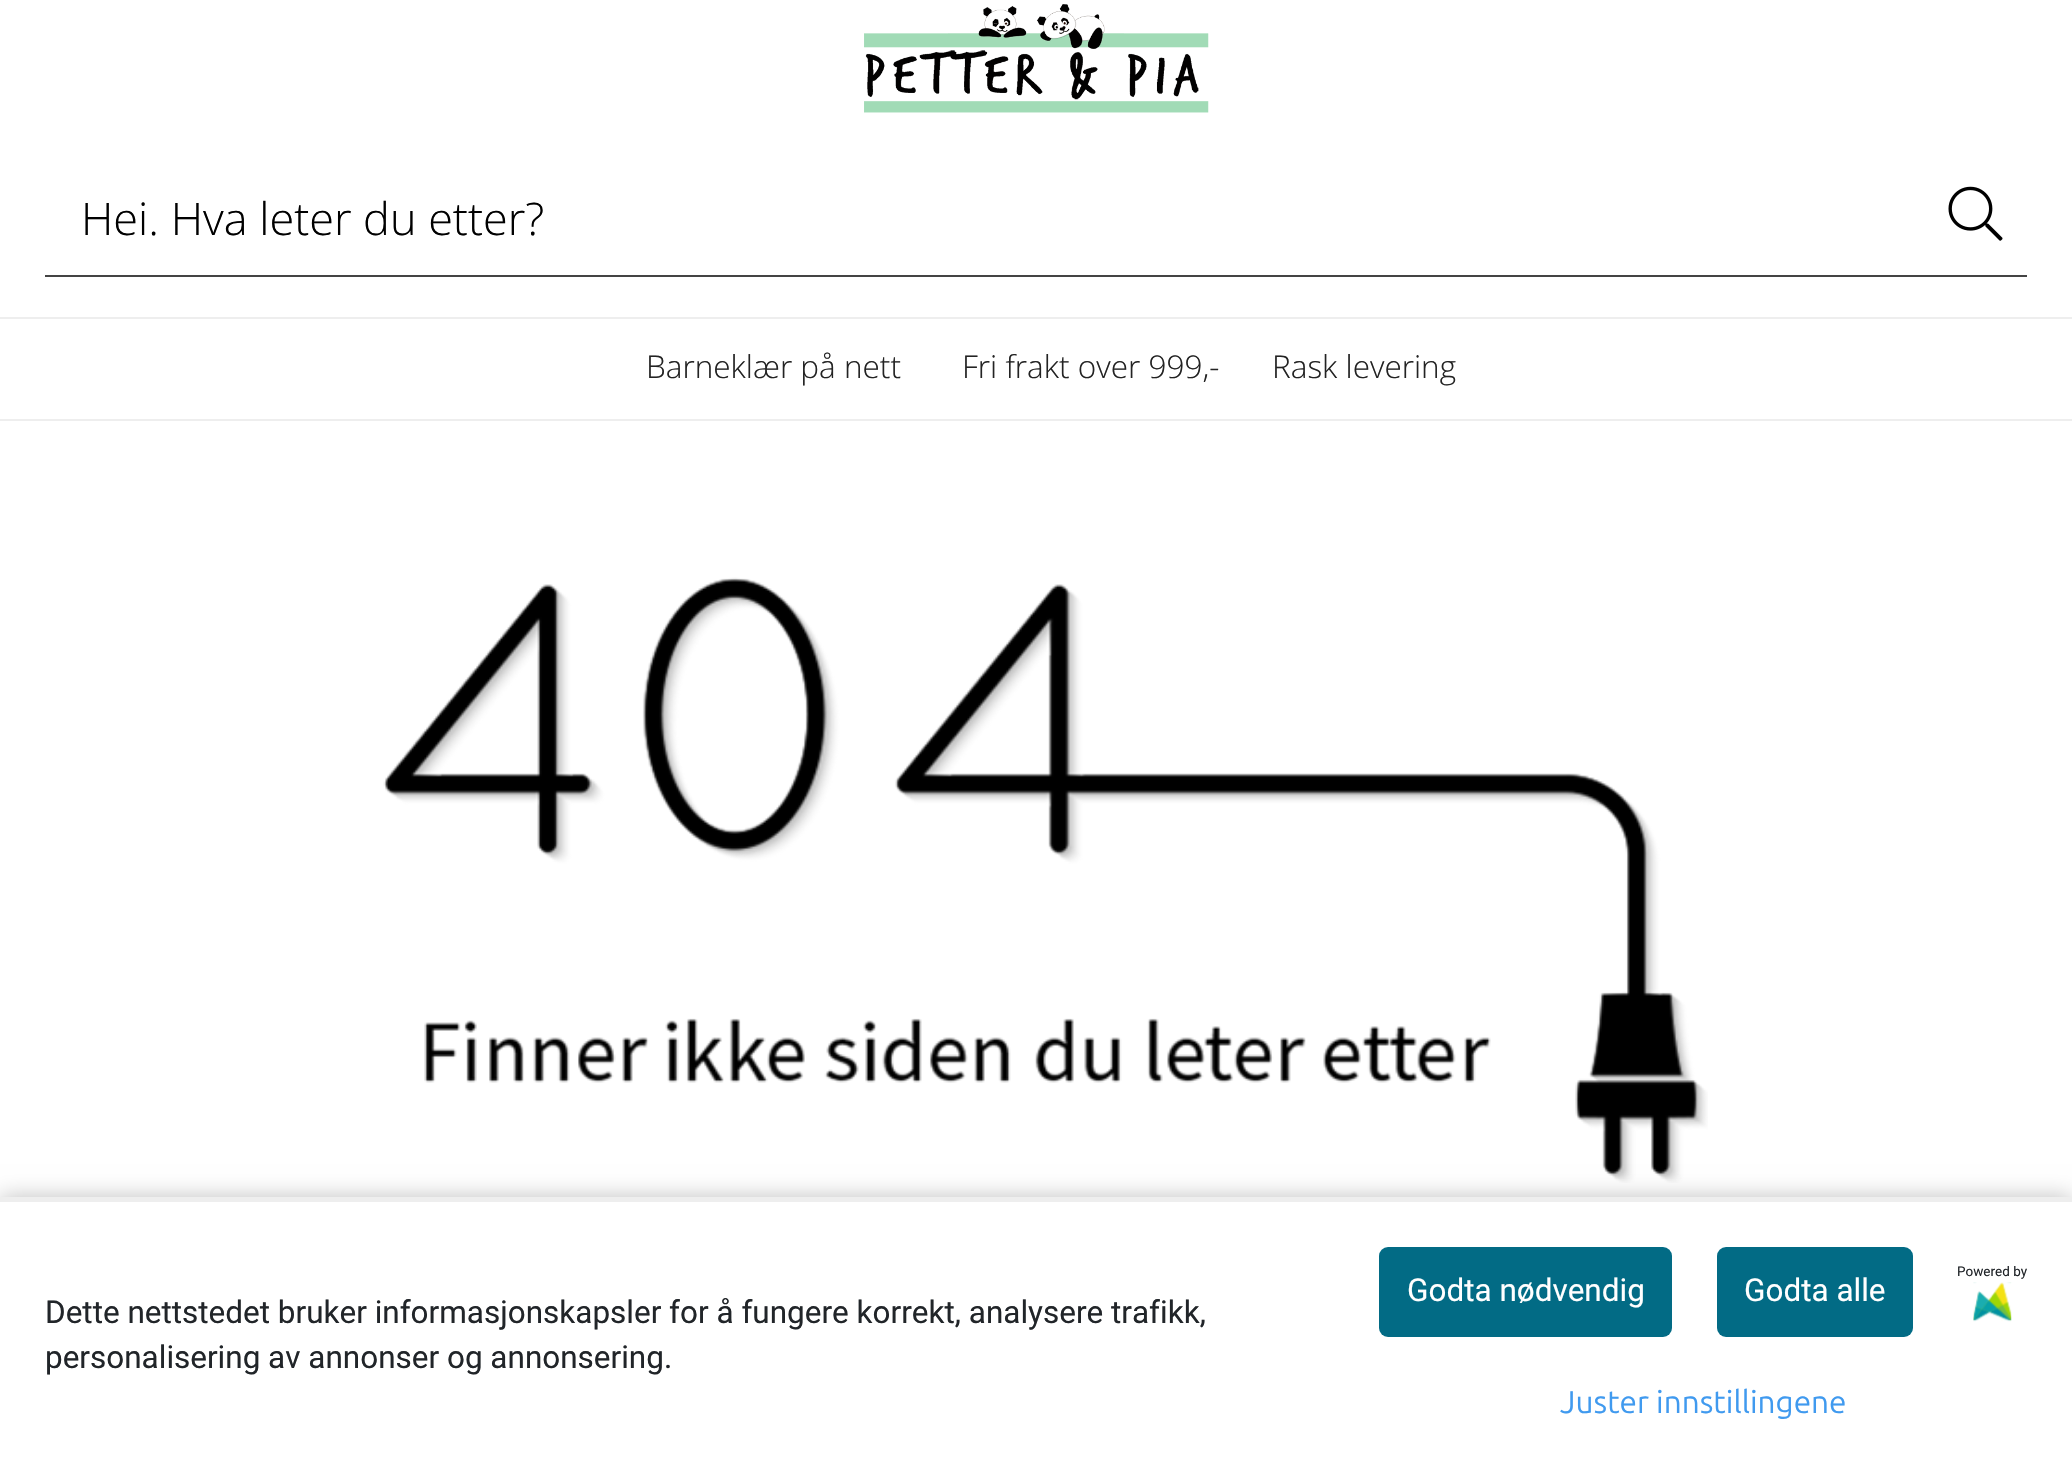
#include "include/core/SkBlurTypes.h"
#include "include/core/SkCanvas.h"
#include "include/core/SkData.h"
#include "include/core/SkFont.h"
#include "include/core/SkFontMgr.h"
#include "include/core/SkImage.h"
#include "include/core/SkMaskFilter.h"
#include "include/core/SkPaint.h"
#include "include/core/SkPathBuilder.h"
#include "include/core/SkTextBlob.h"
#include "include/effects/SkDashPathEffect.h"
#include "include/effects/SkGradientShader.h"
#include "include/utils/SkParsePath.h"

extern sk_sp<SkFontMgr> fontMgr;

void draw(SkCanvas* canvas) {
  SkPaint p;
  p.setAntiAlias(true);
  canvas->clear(SK_ColorWHITE);
  canvas->drawImageRect(SkImages::DeferredFromEncodedData(SkData::MakeFromFileName("images/1.png")), SkRect::MakeLTRB(864, 4, 1209, 113), SkSamplingOptions());
  p.setColor(SkColorSetRGB(68, 68, 68));
  canvas->drawRect(SkRect::MakeLTRB(45, 275, 2027, 277), p);
  canvas->drawImageRect(SkImages::DeferredFromEncodedData(SkData::MakeFromFileName("images/2.png")), SkRect::MakeLTRB(1948, 186, 2003, 241), SkSamplingOptions());
  p.setColor(SkColorSetRGB(238, 238, 238));
  canvas->drawRect(SkRect::MakeLTRB(0, 317, 2072, 319), p);
  canvas->drawRect(SkRect::MakeLTRB(0, 419, 2072, 421), p);
  canvas->drawImageRect(SkImages::DeferredFromEncodedData(SkData::MakeFromFileName("images/3.png")), SkRect::MakeLTRB(383, 577, 1708, 1183), SkSamplingOptions());
  p.setColor(SkColorSetARGB(64, 0, 0, 0));
  p.setMaskFilter(SkMaskFilter::MakeBlur(kNormal_SkBlurStyle, 11));
  canvas->drawRect(SkRect::MakeLTRB(0, 1197, 2072, 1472), p);
  p.setMaskFilter(nullptr);
  p.setColor(SK_ColorWHITE);
  canvas->drawRect(SkRect::MakeLTRB(0, 1202, 2072, 1471), p);
  p.setColor(SkColorSetRGB(238, 238, 238));
  canvas->drawRect(SkRect::MakeLTRB(0, 1197, 2072, 1202), p);
  canvas->drawImageRect(SkImages::DeferredFromEncodedData(SkData::MakeFromFileName("images/4.png")), SkRect::MakeLTRB(1973, 1282, 2012, 1322), SkSamplingOptions());
  p.setColor(SkColorSetRGB(2, 107, 133));
  canvas->drawRoundRect(SkRect::MakeLTRB(1379, 1247, 1672, 1337), 9, 9, p);
  canvas->drawRoundRect(SkRect::MakeLTRB(1717, 1247, 1913, 1337), 9, 9, p);
  SkFont font1(fontMgr->matchFamilyStyle("Open Sans", SkFontStyle(300, SkFontStyle::kNormal_Width, SkFontStyle::kUpright_Slant)), 45);
  font1.setSubpixel(true);
  p.setColor(SK_ColorBLACK);
  canvas->drawString("Hei. Hva leter du etter?", 81, 235, font1, p);
  SkFont font2(fontMgr->matchFamilyStyle("Open Sans", SkFontStyle(300, SkFontStyle::kNormal_Width, SkFontStyle::kUpright_Slant)), 31.5f);
  font2.setSubpixel(true);
  p.setColor(SkColorSetRGB(35, 35, 35));
  canvas->drawString("Barneklær på nett", 646, 378, font2, p);
  canvas->drawString("Fri frakt over 999,-", 962, 378, font2, p);
  canvas->drawString("Rask levering", 1272, 378, font2, p);
  SkFont font3(fontMgr->matchFamilyStyle("Roboto", SkFontStyle::Normal()), 31.5f);
  font3.setSubpixel(true);
  p.setColor(SkColorSetRGB(33, 37, 41));
  canvas->drawString("Dette nettstedet bruker informasjonskapsler for å fungere korrekt, analysere trafikk,", 45, 1323, font3, p);
  canvas->drawString("personalisering av annonser og annonsering.", 45, 1368, font3, p);
  SkFont font4(fontMgr->matchFamilyStyle("Roboto", SkFontStyle::Normal()), 13.5f);
  font4.setSubpixel(true);
  canvas->drawString("Powered by", 1957, 1276, font4, p);
  p.setColor(SK_ColorWHITE);
  canvas->drawString("Godta nødvendig", 1407, 1301, font3, p);
  canvas->drawString("Godta alle", 1744, 1301, font3, p);
  SkFont font5(fontMgr->matchFamilyStyle("Ubuntu", SkFontStyle::Normal()), 31.5f);
  font5.setSubpixel(true);
  p.setColor(SkColorSetRGB(64, 154, 239));
  canvas->drawString("Juster innstillingene", 1560, 1413, font5, p);
}
